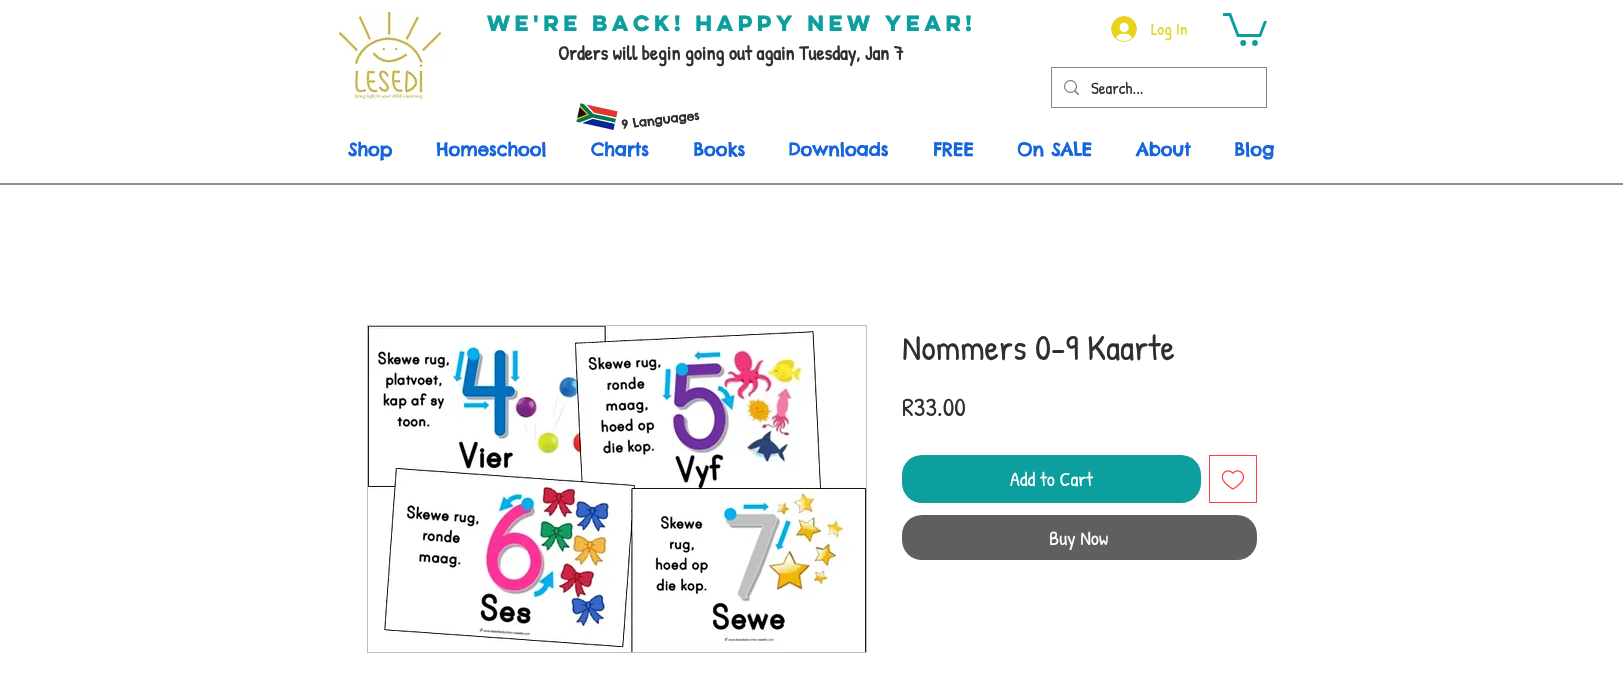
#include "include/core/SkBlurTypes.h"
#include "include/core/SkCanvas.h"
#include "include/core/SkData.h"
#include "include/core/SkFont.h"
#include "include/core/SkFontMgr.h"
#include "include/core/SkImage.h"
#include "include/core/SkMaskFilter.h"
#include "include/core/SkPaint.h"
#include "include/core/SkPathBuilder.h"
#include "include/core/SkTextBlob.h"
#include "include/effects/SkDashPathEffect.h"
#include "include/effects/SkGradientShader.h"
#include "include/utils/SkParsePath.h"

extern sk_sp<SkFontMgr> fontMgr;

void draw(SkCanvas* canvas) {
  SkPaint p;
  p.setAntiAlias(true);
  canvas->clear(SK_ColorWHITE);
  canvas->drawImageRect(SkImages::DeferredFromEncodedData(SkData::MakeFromFileName("images/1.png")), SkRect::MakeLTRB(338, 12, 443, 100), SkSamplingOptions());
  canvas->drawImageRect(SkImages::DeferredFromEncodedData(SkData::MakeFromFileName("images/2.png")), SkRect::MakeLTRB(1111, 16, 1137, 42), SkSamplingOptions());
  p.setColor(SkColorSetRGB(13, 158, 158));
  canvas->drawPath(SkPathBuilder().moveTo(1267, 21).lineTo(1261, 37).lineTo(1237, 37).lineTo(1229, 16).lineTo(1223, 16).lineTo(1223, 13).lineTo(1231, 13).lineTo(1239, 34).lineTo(1259, 34).lineTo(1264, 21).detach(), p);
  canvas->drawCircle(1255, 43, 2.9f, p);
  canvas->drawCircle(1243.2f, 43, 2.9f, p);
  p.setStyle(SkPaint::kStroke_Style);
  p.setStrokeWidth(1);
  p.setColor(SkColorSetRGB(130, 130, 131));
  canvas->drawRect(SkRect::MakeLTRB(1051.5f, 67.5f, 1266.5f, 107.5f), p);
  canvas->drawImageRect(SkImages::DeferredFromEncodedData(SkData::MakeFromFileName("images/3.png")), SkRect::MakeLTRB(1064, 80, 1079, 95), SkSamplingOptions());
  canvas->drawImageRect(SkImages::DeferredFromEncodedData(SkData::MakeFromFileName("images/4.png")), SkRect::MakeLTRB(576, 103, 618, 130), SkSamplingOptions());
  p.setStyle(SkPaint::kFill_Style);
  p.setColor(SkColorSetRGB(142, 141, 145));
  canvas->drawRect(SkRect::MakeLTRB(0, 183, 1623, 185), p);
  p.setStyle(SkPaint::kStroke_Style);
  p.setColor(SkColorSetRGB(190, 188, 194));
  canvas->drawRect(SkRect::MakeLTRB(367.5f, 325.5f, 866.5f, 652.5f), p);
  canvas->drawImageRect(SkImages::DeferredFromEncodedData(SkData::MakeFromFileName("images/5.png")), SkRect::MakeLTRB(368, 326, 866, 652), SkSamplingOptions());
  p.setStyle(SkPaint::kFill_Style);
  p.setColor(SkColorSetRGB(13, 158, 158));
  canvas->drawRoundRect(SkRect::MakeLTRB(902, 455, 1201, 503), 20, 20, p);
  p.setStyle(SkPaint::kStroke_Style);
  p.setColor(SkColorSetRGB(255, 64, 64));
  canvas->drawRect(SkRect::MakeLTRB(1209.5f, 455.5f, 1256.5f, 502.5f), p);
  canvas->drawImageRect(SkImages::DeferredFromEncodedData(SkData::MakeFromFileName("images/6.png")), SkRect::MakeLTRB(1221, 470, 1245, 490), SkSamplingOptions());
  p.setStyle(SkPaint::kFill_Style);
  p.setColor(SkColorSetRGB(95, 94, 97));
  canvas->drawRoundRect(SkRect::MakeLTRB(902, 515, 1257, 560), 20, 20, p);
  SkFont font1(fontMgr->matchFamilyStyle("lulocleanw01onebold", SkFontStyle::Bold()), 20);
  font1.setSubpixel(true);
  p.setColor(SkColorSetRGB(13, 158, 158));
  canvas->drawString("We're BACK! Happy new year!", 487, 31, font1, p);
  SkFont font2(fontMgr->matchFamilyStyle("Patrick Hand", SkFontStyle::Normal()), 17);
  font2.setSubpixel(true);
  p.setColor(SkColorSetRGB(232, 211, 28));
  canvas->drawString("Log In", 1151, 35, font2, p);
  SkFont font3(fontMgr->matchFamilyStyle("Patrick Hand", SkFontStyle::Bold()), 20);
  font3.setSubpixel(true);
  p.setColor(SkColorSetRGB(47, 47, 48));
  canvas->drawString("Orders will begin going out again Tuesday, Jan 7", 558, 60, font3, p);
  canvas->drawString("Search...", 1091, 94, font2, p);
  SkFont font4(fontMgr->matchFamilyStyle("Chelsea Market", SkFontStyle::Bold()), 12);
  font4.setSubpixel(true);
  canvas->save();
  canvas->rotate(-6.9f, 622, 129);
  canvas->drawString("9 Languages", 622, 129, font4, p);
  canvas->restore();
  SkFont font5(fontMgr->matchFamilyStyle("Chelsea Market", SkFontStyle::Bold()), 18);
  font5.setSubpixel(true);
  p.setColor(SkColorSetRGB(22, 101, 219));
  canvas->drawString("Shop", 348, 156, font5, p);
  canvas->drawString("Homeschool", 436, 156, font5, p);
  canvas->drawString("Charts", 591, 156, font5, p);
  canvas->drawString("Books", 693, 156, font5, p);
  canvas->drawString("Downloads", 788, 156, font5, p);
  canvas->drawString("FREE", 933, 156, font5, p);
  canvas->drawString("On SALE", 1017, 156, font5, p);
  canvas->drawString("About", 1136, 156, font5, p);
  canvas->drawString("Blog", 1234, 156, font5, p);
  SkFont font6(fontMgr->matchFamilyStyle("Patrick Hand", SkFontStyle::Normal()), 36);
  font6.setSubpixel(true);
  p.setColor(SkColorSetRGB(47, 47, 48));
  canvas->drawString("Nommers 0-9 Kaarte", 902, 360, font6, p);
  SkFont font7(fontMgr->matchFamilyStyle("Patrick Hand", SkFontStyle::Normal()), 26);
  font7.setSubpixel(true);
  canvas->drawString("R33.00", 902, 416, font7, p);
  SkFont font8(fontMgr->matchFamilyStyle("Patrick Hand", SkFontStyle::Normal()), 20);
  font8.setSubpixel(true);
  p.setColor(SK_ColorWHITE);
  canvas->drawString("Add to Cart", 1010, 486, font8, p);
  canvas->save();
  canvas->clipRect(SkRect::MakeLTRB(1049, 525, 1109, 550));
  canvas->drawString("Buy Now", 1049, 545, font8, p);
  canvas->restore();
}
